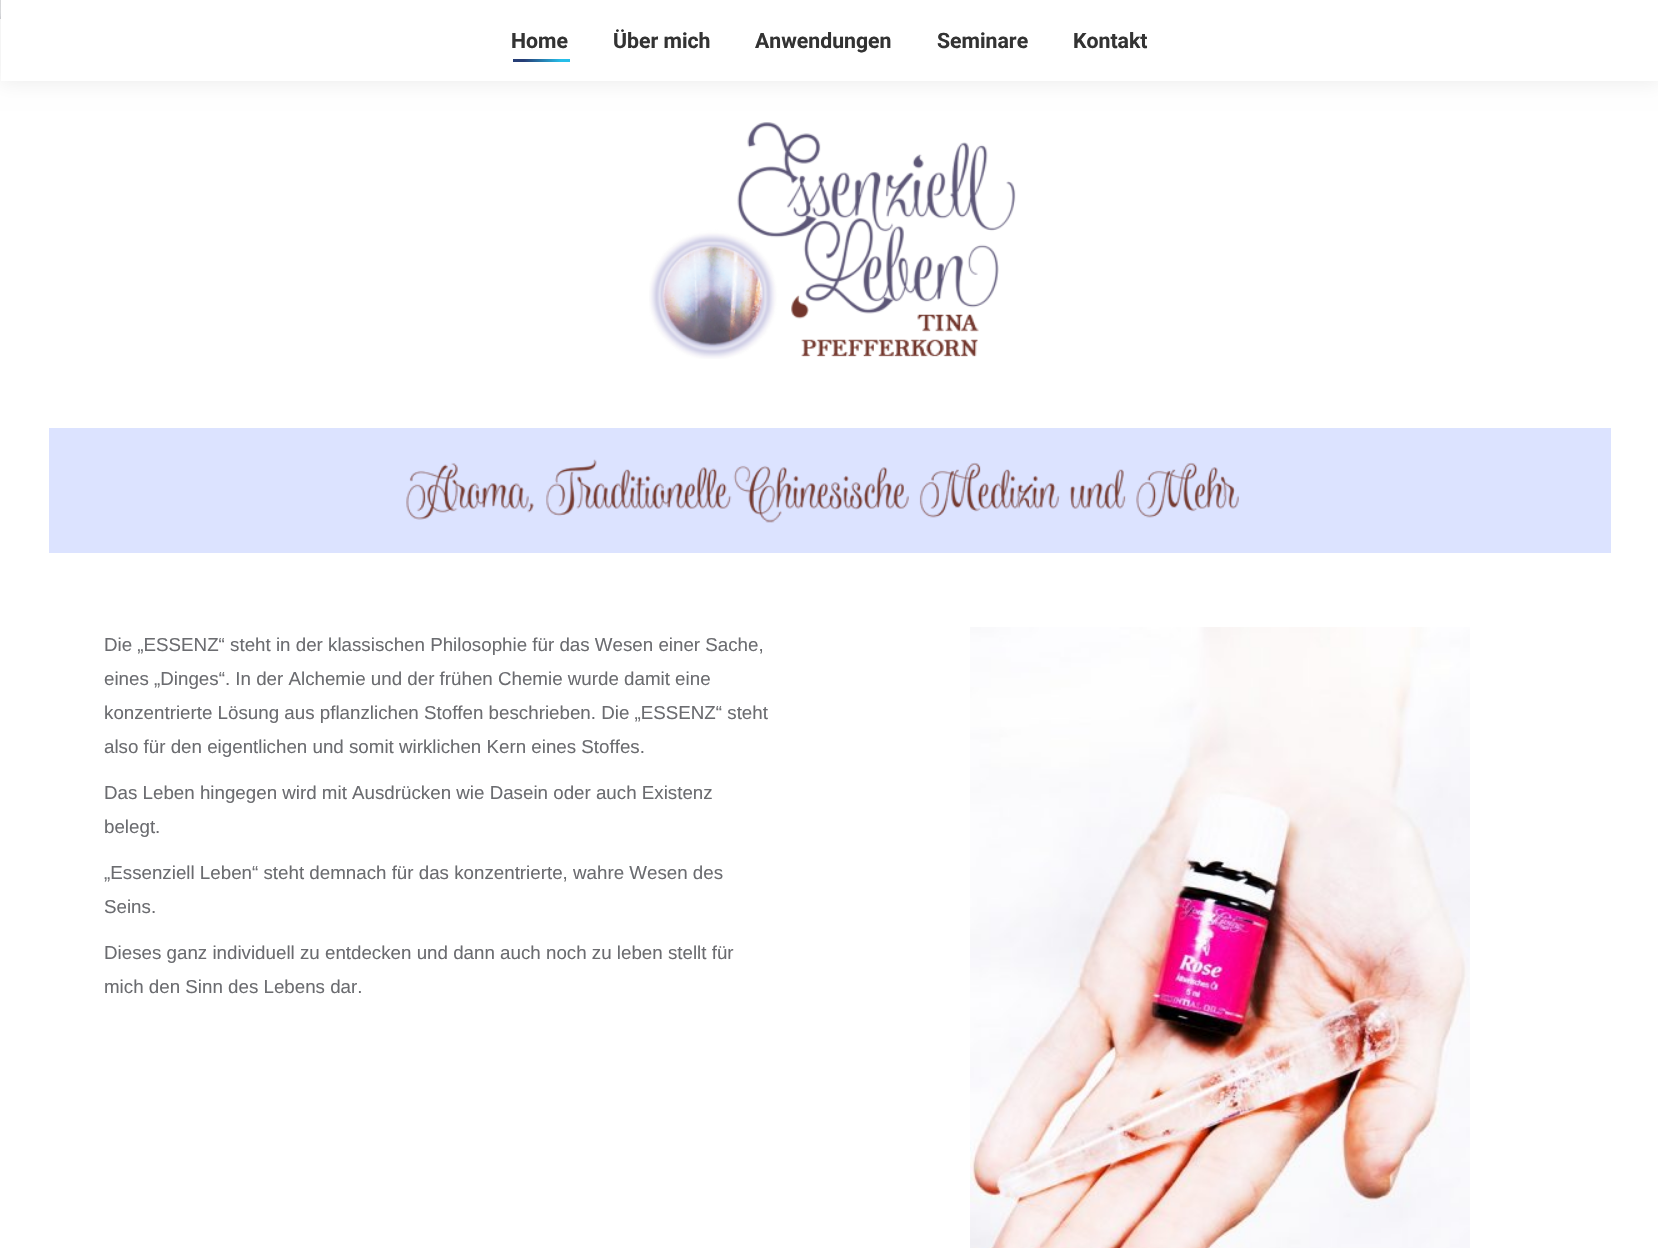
#include "include/core/SkBlurTypes.h"
#include "include/core/SkCanvas.h"
#include "include/core/SkData.h"
#include "include/core/SkFont.h"
#include "include/core/SkFontMgr.h"
#include "include/core/SkImage.h"
#include "include/core/SkMaskFilter.h"
#include "include/core/SkPaint.h"
#include "include/core/SkPathBuilder.h"
#include "include/core/SkTextBlob.h"
#include "include/effects/SkDashPathEffect.h"
#include "include/effects/SkGradientShader.h"
#include "include/utils/SkParsePath.h"

extern sk_sp<SkFontMgr> fontMgr;

void draw(SkCanvas* canvas) {
  SkPaint p;
  p.setAntiAlias(true);
  canvas->clear(SK_ColorWHITE);
  canvas->drawImageRect(SkImages::DeferredFromEncodedData(SkData::MakeFromFileName("images/1.png")), SkRect::MakeLTRB(0, 0, 1, 19), SkSamplingOptions());
  p.setColor(SkColorSetARGB(18, 0, 0, 0));
  p.setMaskFilter(SkMaskFilter::MakeBlur(kNormal_SkBlurStyle, 9.5f));
  canvas->drawRect(SkRect::MakeLTRB(0, -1, 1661, 83), p);
  p.setMaskFilter(nullptr);
  p.setColor(SK_ColorWHITE);
  canvas->drawRect(SkRect::MakeLTRB(1, 0, 1658, 81), p);
  {
    const SkColor colors[] = {SkColorSetRGB(38, 62, 118), SkColorSetRGB(38, 190, 233)};
    const float stops[] = {0.21f, 0.86f};
    const SkPoint ends[] = {{512, 60}, {569, 60}};
    p.setShader(SkGradientShader::MakeLinear(ends, colors, stops, 2, SkTileMode::kClamp));
    p.setAlpha(255);
  }
  canvas->drawRect(SkRect::MakeLTRB(513, 59, 570, 62), p);
  canvas->drawImageRect(SkImages::DeferredFromEncodedData(SkData::MakeFromFileName("images/2.png")), SkRect::MakeLTRB(649, 122, 1016, 359), SkSamplingOptions());
  p.setShader(nullptr);
  p.setColor(SkColorSetRGB(220, 227, 255));
  canvas->drawRect(SkRect::MakeLTRB(49, 428, 1611, 553), p);
  canvas->drawImageRect(SkImages::DeferredFromEncodedData(SkData::MakeFromFileName("images/3.png")), SkRect::MakeLTRB(406, 459, 1239, 523), SkSamplingOptions());
  canvas->drawImageRect(SkImages::DeferredFromEncodedData(SkData::MakeFromFileName("images/4.png")), SkRect::MakeLTRB(970, 627, 1470, 1248), SkSamplingOptions());
  SkFont font1(fontMgr->matchFamilyStyle("Roboto", SkFontStyle::Bold()), 21.25f);
  font1.setSubpixel(true);
  p.setColor(SkColorSetRGB(51, 51, 51));
  canvas->drawString("Home", 511, 48, font1, p);
  canvas->drawString("Über mich", 613, 48, font1, p);
  canvas->drawString("Anwendungen", 755, 48, font1, p);
  canvas->drawString("Seminare", 937, 48, font1, p);
  canvas->drawString("Kontakt", 1073, 48, font1, p);
  SkFont font2(fontMgr->matchFamilyStyle("Liberation Sans", SkFontStyle::Normal()), 18.75f);
  font2.setSubpixel(true);
  p.setColor(SkColorSetRGB(107, 108, 112));
  canvas->drawString("Die „ESSENZ“ steht in der klassischen Philosophie für das Wesen einer Sache,", 104, 651, font2, p);
  canvas->drawString("eines „Dinges“. In der Alchemie und der frühen Chemie wurde damit eine", 104, 685, font2, p);
  canvas->drawString("konzentrierte Lösung aus pflanzlichen Stoffen beschrieben. Die „ESSENZ“ steht", 104, 719, font2, p);
  canvas->drawString("also für den eigentlichen und somit wirklichen Kern eines Stoffes.", 104, 753, font2, p);
  canvas->drawString("Das Leben hingegen wird mit Ausdrücken wie Dasein oder auch Existenz", 104, 799, font2, p);
  canvas->drawString("belegt.", 104, 833, font2, p);
  canvas->drawString("„Essenziell Leben“ steht demnach für das konzentrierte, wahre Wesen des", 104, 879, font2, p);
  canvas->drawString("Seins.", 104, 913, font2, p);
  canvas->drawString("Dieses ganz individuell zu entdecken und dann auch noch zu leben stellt für", 104, 959, font2, p);
  canvas->drawString("mich den Sinn des Lebens dar.", 104, 993, font2, p);
}
